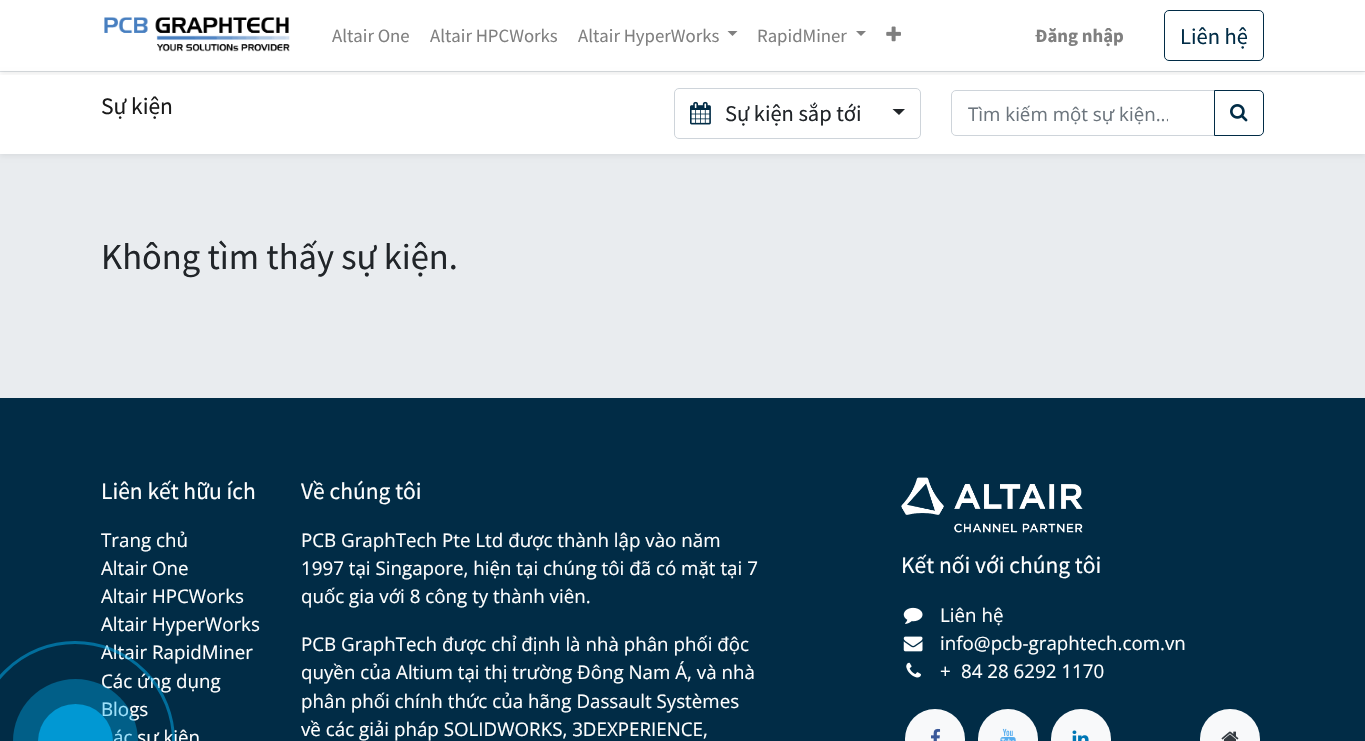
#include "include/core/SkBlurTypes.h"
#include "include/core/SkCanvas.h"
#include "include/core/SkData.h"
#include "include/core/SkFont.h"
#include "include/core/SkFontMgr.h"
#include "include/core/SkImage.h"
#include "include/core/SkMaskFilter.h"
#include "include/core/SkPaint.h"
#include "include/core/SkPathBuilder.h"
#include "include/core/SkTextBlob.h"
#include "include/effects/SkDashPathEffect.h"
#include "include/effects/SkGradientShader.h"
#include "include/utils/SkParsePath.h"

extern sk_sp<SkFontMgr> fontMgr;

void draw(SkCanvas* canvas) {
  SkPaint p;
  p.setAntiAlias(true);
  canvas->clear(SK_ColorWHITE);
  p.setColor(SkColorSetRGB(233, 236, 239));
  canvas->drawRect(SkRect::MakeLTRB(0, 154, 1365, 398), p);
  p.setColor(SkColorSetARGB(18, 0, 0, 0));
  p.setMaskFilter(SkMaskFilter::MakeBlur(kNormal_SkBlurStyle, 2.5f));
  canvas->drawRect(SkRect::MakeLTRB(0, 74, 1365, 156), p);
  p.setMaskFilter(nullptr);
  p.setColor(SK_ColorWHITE);
  canvas->drawRect(SkRect::MakeLTRB(0, 72, 1365, 154), p);
  p.setColor(SkColorSetRGB(222, 226, 230));
  canvas->drawRect(SkRect::MakeLTRB(0, 71, 1365, 72), p);
  canvas->save();
  canvas->clipRect(SkRect::MakeLTRB(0, 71, 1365, 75));
  p.setColor(SkColorSetARGB(18, 0, 0, 0));
  p.setMaskFilter(SkMaskFilter::MakeBlur(kNormal_SkBlurStyle, 2.5f));
  canvas->drawRect(SkRect::MakeLTRB(0, 3, 1365, 74), p);
  p.setMaskFilter(nullptr);
  canvas->restore();
  canvas->drawImageRect(SkImages::DeferredFromEncodedData(SkData::MakeFromFileName("images/1.png")), SkRect::MakeLTRB(104, 17, 290, 52), SkSamplingOptions());
  p.setColor(SkColorSetRGB(128, 128, 128));
  canvas->drawPath(SkPathBuilder().moveTo(727.5f, 31).lineTo(737.5f, 31).lineTo(732.5f, 36).close().detach(), p);
  canvas->drawPath(SkPathBuilder().moveTo(856, 31).lineTo(866, 31).lineTo(861, 36).close().detach(), p);
  canvas->drawImageRect(SkImages::DeferredFromEncodedData(SkData::MakeFromFileName("images/2.png")), SkRect::MakeLTRB(886, 26, 901, 42), SkSamplingOptions());
  p.setStyle(SkPaint::kStroke_Style);
  p.setStrokeWidth(1);
  p.setColor(SkColorSetRGB(1, 44, 70));
  canvas->drawRoundRect(SkRect::MakeLTRB(1164.5f, 10.5f, 1263.5f, 60.5f), 4.5f, 4.5f, p);
  p.setColor(SkColorSetRGB(206, 212, 218));
  canvas->drawRoundRect(SkRect::MakeLTRB(674.5f, 88.5f, 920.5f, 138.5f), 4.5f, 4.5f, p);
  canvas->drawImageRect(SkImages::DeferredFromEncodedData(SkData::MakeFromFileName("images/3.png")), SkRect::MakeLTRB(690, 101, 711, 125), SkSamplingOptions());
  p.setStyle(SkPaint::kFill_Style);
  p.setColor(SkColorSetRGB(33, 37, 41));
  canvas->drawPath(SkPathBuilder().moveTo(892.5f, 109).lineTo(905, 109).lineTo(899, 115).close().detach(), p);
  p.setStyle(SkPaint::kStroke_Style);
  p.setColor(SkColorSetRGB(206, 212, 218));
  canvas->drawPath(SkPathBuilder().moveTo(956, 90.5f).lineTo(1214.5f, 90.5f).lineTo(1214.5f, 135.5f).lineTo(956, 135.5f).cubicTo(953.5f, 135.5f, 951.5f, 133.5f, 951.5f, 131).lineTo(951.5f, 95).cubicTo(951.5f, 92.5f, 953.5f, 90.5f, 956, 90.5f).close().detach(), p);
  p.setColor(SkColorSetRGB(1, 44, 70));
  canvas->drawPath(SkPathBuilder().moveTo(1214.5f, 90.5f).lineTo(1259, 90.5f).cubicTo(1261.5f, 90.5f, 1263.5f, 92.5f, 1263.5f, 95).lineTo(1263.5f, 131).cubicTo(1263.5f, 133.5f, 1261.5f, 135.5f, 1259, 135.5f).lineTo(1214.5f, 135.5f).close().detach(), p);
  canvas->drawImageRect(SkImages::DeferredFromEncodedData(SkData::MakeFromFileName("images/4.png")), SkRect::MakeLTRB(1230, 104, 1248, 122), SkSamplingOptions());
  p.setStyle(SkPaint::kFill_Style);
  canvas->drawRect(SkRect::MakeLTRB(0, 398, 1365, 741), p);
  canvas->drawImageRect(SkImages::DeferredFromEncodedData(SkData::MakeFromFileName("images/5.png")), SkRect::MakeLTRB(901, 477, 1083, 533), SkSamplingOptions());
  canvas->drawImageRect(SkImages::DeferredFromEncodedData(SkData::MakeFromFileName("images/6.png")), SkRect::MakeLTRB(903, 607, 923, 624), SkSamplingOptions());
  canvas->drawImageRect(SkImages::DeferredFromEncodedData(SkData::MakeFromFileName("images/7.png")), SkRect::MakeLTRB(903, 636, 923, 652), SkSamplingOptions());
  canvas->drawImageRect(SkImages::DeferredFromEncodedData(SkData::MakeFromFileName("images/8.png")), SkRect::MakeLTRB(906, 662, 921, 678), SkSamplingOptions());
  p.setColor(SkColorSetRGB(248, 249, 250));
  canvas->drawCircle(935, 739, 30, p);
  canvas->drawImageRect(SkImages::DeferredFromEncodedData(SkData::MakeFromFileName("images/9.png")), SkRect::MakeLTRB(931, 728, 941, 741), SkSamplingOptions());
  canvas->drawCircle(1008, 739, 30, p);
  canvas->drawImageRect(SkImages::DeferredFromEncodedData(SkData::MakeFromFileName("images/10.png")), SkRect::MakeLTRB(1000, 728, 1016, 741), SkSamplingOptions());
  canvas->drawCircle(1081, 739, 30, p);
  canvas->drawImageRect(SkImages::DeferredFromEncodedData(SkData::MakeFromFileName("images/11.png")), SkRect::MakeLTRB(1072, 730, 1089, 741), SkSamplingOptions());
  canvas->drawCircle(1230, 739, 30, p);
  canvas->drawImageRect(SkImages::DeferredFromEncodedData(SkData::MakeFromFileName("images/12.png")), SkRect::MakeLTRB(1221, 731, 1239, 741), SkSamplingOptions());
  SkFont font1(fontMgr->matchFamilyStyle("Source Sans Pro", SkFontStyle::Normal()), 18.75f);
  font1.setSubpixel(true);
  p.setColor(SkColorSetRGB(128, 128, 128));
  canvas->drawString("Altair One", 332, 42, font1, p);
  canvas->drawString("Altair HPCWorks", 430, 42, font1, p);
  canvas->drawString("Altair HyperWorks", 578, 42, font1, p);
  canvas->drawString("RapidMiner", 757, 42, font1, p);
  SkFont font2(fontMgr->matchFamilyStyle("Source Sans Pro", SkFontStyle::Bold()), 18.75f);
  font2.setSubpixel(true);
  canvas->drawString("Đăng nhập", 1035, 42, font2, p);
  SkFont font3(fontMgr->matchFamilyStyle("Source Sans Pro", SkFontStyle::Normal()), 22.5f);
  font3.setSubpixel(true);
  p.setColor(SkColorSetRGB(1, 44, 70));
  canvas->drawString("Liên hệ", 1180, 44, font3, p);
  SkFont font4(fontMgr->matchFamilyStyle("Source Sans Pro", SkFontStyle::Normal()), 23.5f);
  font4.setSubpixel(true);
  p.setColor(SkColorSetRGB(26, 26, 26));
  canvas->drawString("Sự kiện", 101, 114, font4, p);
  p.setColor(SkColorSetRGB(33, 37, 41));
  canvas->drawString("Sự kiện sắp tới", 725, 121, font3, p);
  canvas->save();
  canvas->clipRect(SkRect::MakeLTRB(968, 101, 1168, 126));
  SkFont font5(fontMgr->matchFamilyStyle("Open Sans", SkFontStyle::Normal()), 18.75f);
  font5.setSubpixel(true);
  p.setColor(SkColorSetRGB(108, 117, 125));
  canvas->drawString("Tìm kiếm một sự kiện...", 968, 121, font5, p);
  canvas->restore();
  SkFont font6(fontMgr->matchFamilyStyle("Source Sans Pro", SkFontStyle::Normal()), 36.5f);
  font6.setSubpixel(true);
  p.setColor(SkColorSetRGB(33, 37, 41));
  canvas->drawString("Không tìm thấy sự kiện.", 101, 269, font6, p);
  p.setColor(SK_ColorWHITE);
  canvas->drawString("Liên kết hữu ích", 101, 499, font4, p);
  canvas->drawString("Trang chủ", 101, 547, font5, p);
  canvas->drawString("Altair One", 101, 575, font5, p);
  canvas->drawString("Altair HPCWorks", 101, 603, font5, p);
  canvas->drawString("Altair HyperWorks", 101, 631, font5, p);
  canvas->drawString("Altair RapidMiner", 101, 659, font5, p);
  canvas->drawString("Các ứng dụng", 101, 688, font5, p);
  canvas->drawString("Blogs", 101, 716, font5, p);
  canvas->drawString("ác sự kiện", 113, 744, font5, p);
  p.setStyle(SkPaint::kStroke_Style);
  p.setStrokeWidth(3);
  p.setColor(SkColorSetARGB(128, 0, 175, 242));
  canvas->drawCircle(75, 741, 98.5f, p);
  p.setStyle(SkPaint::kFill_Style);
  p.setColor(SkColorSetARGB(97, 0, 175, 242));
  canvas->drawCircle(75.5f, 741.5f, 62.5f, p);
  p.setColor(SkColorSetARGB(179, 0, 175, 242));
  canvas->drawCircle(75.5f, 741.5f, 37.5f, p);
  p.setColor(SK_ColorWHITE);
  canvas->drawString("Về chúng tôi", 301, 499, font4, p);
  canvas->drawString("PCB GraphTech Pte Ltd được thành lập vào năm", 301, 547, font5, p);
  canvas->drawString("1997 tại Singapore, hiện tại chúng tôi đã có mặt tại 7", 301, 575, font5, p);
  canvas->drawString("quốc gia với 8 công ty thành viên.", 301, 603, font5, p);
  canvas->drawString("PCB GraphTech được chỉ định là nhà phân phối độc", 301, 651, font5, p);
  canvas->drawString("quyền của Altium tại thị trường Đông Nam Á, và nhà", 301, 679, font5, p);
  canvas->drawString("phân phối chính thức của hãng Dassault Systèmes", 301, 708, font5, p);
  canvas->drawString("về các giải pháp SOLIDWORKS, 3DEXPERIENCE,", 301, 736, font5, p);
  canvas->drawString("Kết nối với chúng tôi", 901, 573, font4, p);
  canvas->drawString("Liên hệ", 940, 622, font5, p);
  canvas->drawString("info@pcb-graphtech.com.vn", 940, 650, font5, p);
  canvas->drawString("+", 940, 678, font5, p);
  canvas->drawString("84 28 6292 1170", 961, 678, font5, p);
}
